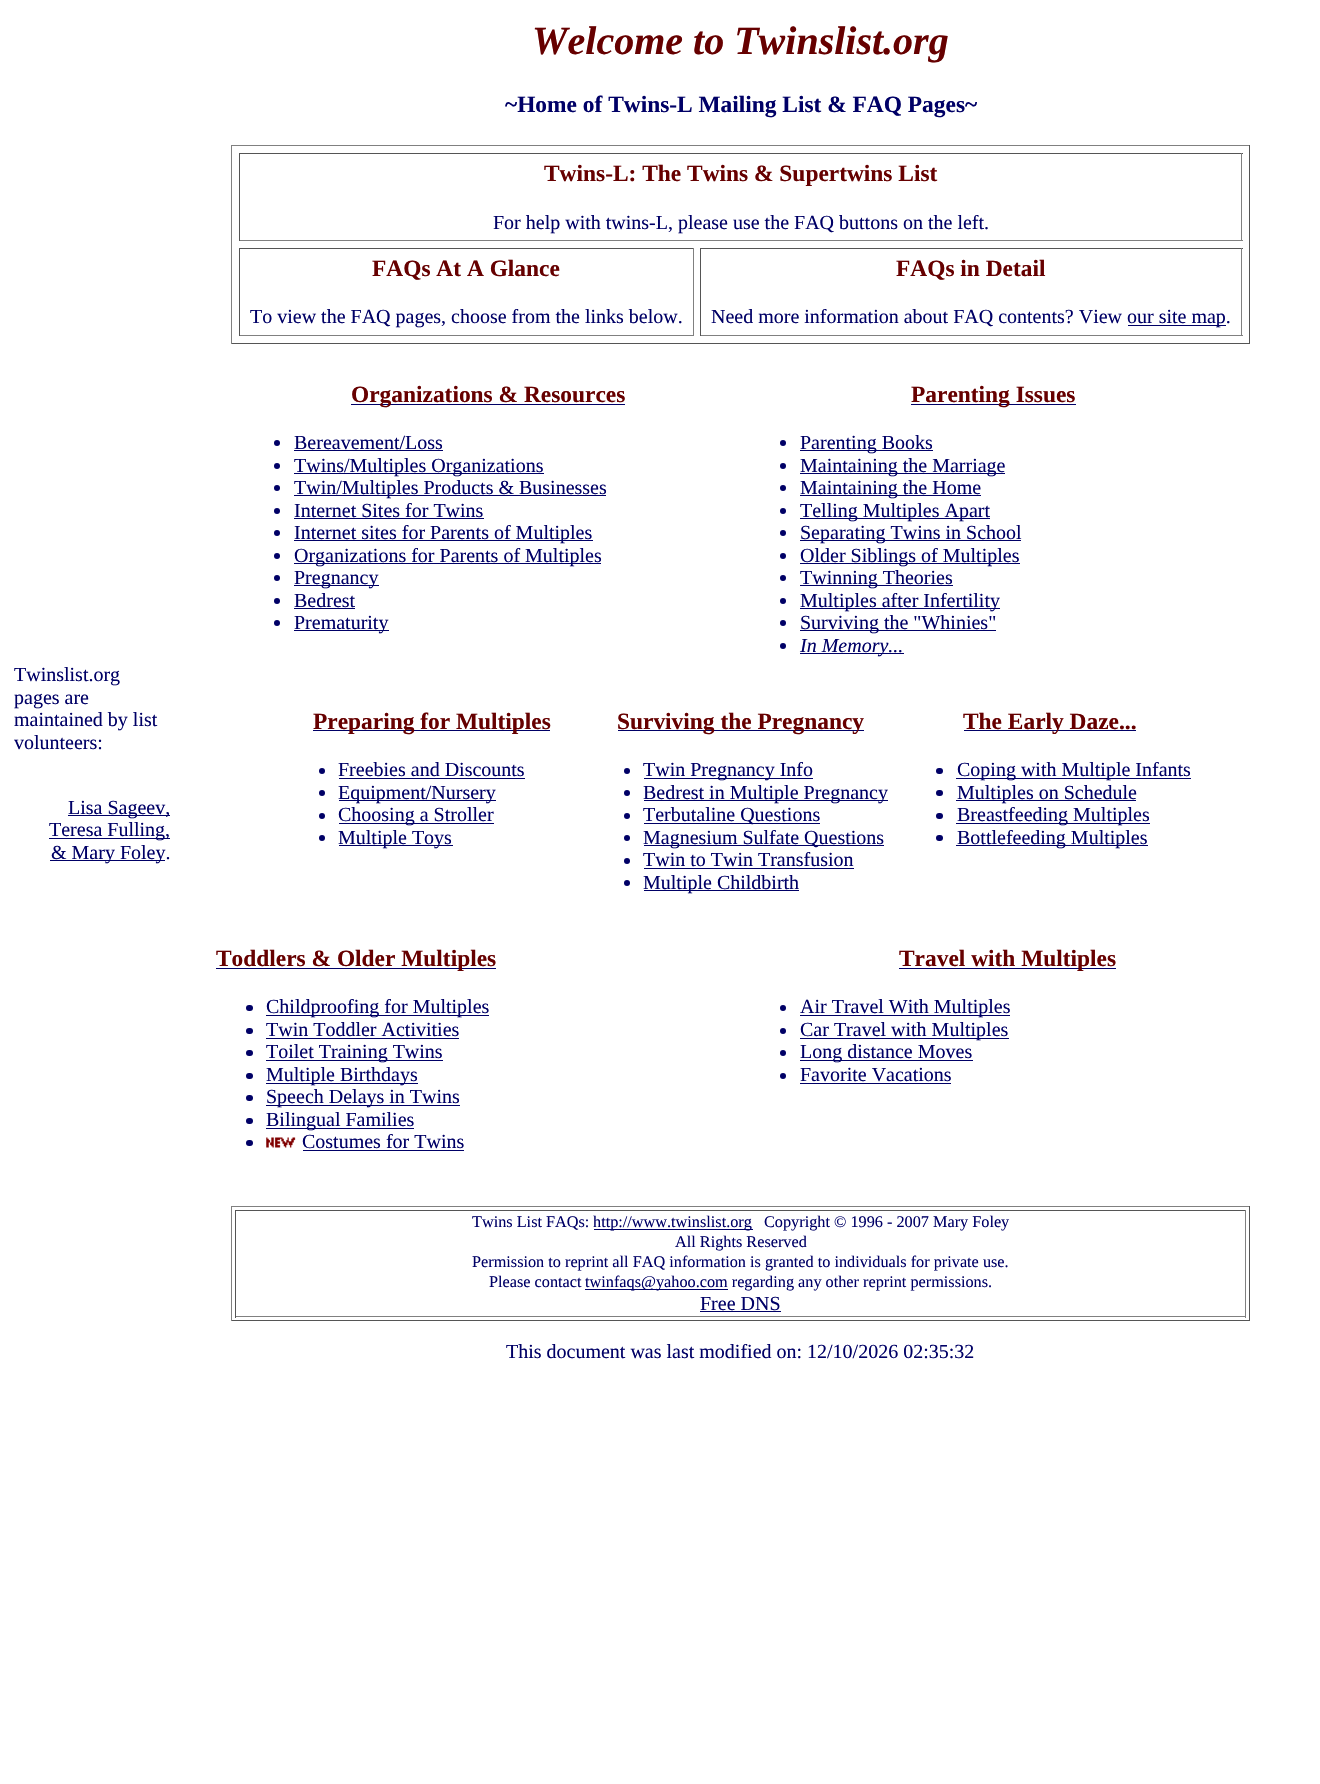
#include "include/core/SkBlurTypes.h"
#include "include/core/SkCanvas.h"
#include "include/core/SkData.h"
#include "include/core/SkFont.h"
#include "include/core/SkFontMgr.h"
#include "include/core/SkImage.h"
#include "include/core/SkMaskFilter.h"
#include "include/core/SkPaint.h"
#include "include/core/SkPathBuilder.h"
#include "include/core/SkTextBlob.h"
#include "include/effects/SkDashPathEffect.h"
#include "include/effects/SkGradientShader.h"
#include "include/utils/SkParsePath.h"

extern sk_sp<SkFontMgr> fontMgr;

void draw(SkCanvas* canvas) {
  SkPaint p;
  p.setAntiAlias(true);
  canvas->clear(SK_ColorWHITE);
  p.setColor(SkColorSetRGB(0, 0, 102));
  canvas->drawRect(SkRect::MakeLTRB(68, 815, 170, 816), p);
  canvas->drawRect(SkRect::MakeLTRB(49, 838, 170, 839), p);
  canvas->drawRect(SkRect::MakeLTRB(50, 860, 165, 861), p);
  p.setColor(SkColorSetRGB(128, 128, 128));
  canvas->drawRect(SkRect::MakeLTRB(231, 145, 1250, 146), p);
  p.setColor(SkColorSetRGB(85, 85, 85));
  canvas->drawRect(SkRect::MakeLTRB(1249, 145, 1250, 344), p);
  canvas->drawRect(SkRect::MakeLTRB(231, 343, 1250, 344), p);
  p.setColor(SkColorSetRGB(128, 128, 128));
  canvas->drawRect(SkRect::MakeLTRB(231, 145, 232, 344), p);
  p.setColor(SkColorSetRGB(85, 85, 85));
  canvas->drawRect(SkRect::MakeLTRB(239, 153, 1243, 154), p);
  p.setColor(SkColorSetRGB(128, 128, 128));
  canvas->drawRect(SkRect::MakeLTRB(1241, 153, 1242, 241), p);
  canvas->drawRect(SkRect::MakeLTRB(239, 240, 1243, 241), p);
  p.setColor(SkColorSetRGB(85, 85, 85));
  canvas->drawRect(SkRect::MakeLTRB(239, 153, 240, 241), p);
  canvas->drawRect(SkRect::MakeLTRB(239, 248, 694, 249), p);
  p.setColor(SkColorSetRGB(128, 128, 128));
  canvas->drawRect(SkRect::MakeLTRB(693, 248, 694, 336), p);
  canvas->drawRect(SkRect::MakeLTRB(239, 335, 694, 336), p);
  p.setColor(SkColorSetRGB(85, 85, 85));
  canvas->drawRect(SkRect::MakeLTRB(239, 248, 240, 336), p);
  canvas->drawRect(SkRect::MakeLTRB(700, 248, 1243, 249), p);
  p.setColor(SkColorSetRGB(128, 128, 128));
  canvas->drawRect(SkRect::MakeLTRB(1241, 248, 1242, 336), p);
  canvas->drawRect(SkRect::MakeLTRB(700, 335, 1243, 336), p);
  p.setColor(SkColorSetRGB(85, 85, 85));
  canvas->drawRect(SkRect::MakeLTRB(700, 248, 701, 336), p);
  p.setColor(SkColorSetRGB(0, 0, 102));
  canvas->drawRect(SkRect::MakeLTRB(1128, 325, 1226, 326), p);
  canvas->drawRect(SkRect::MakeLTRB(351, 404, 625, 405), p);
  canvas->drawCircle(277, 443, 3, p);
  canvas->drawRect(SkRect::MakeLTRB(294, 450, 443, 451), p);
  canvas->drawCircle(277, 466, 3, p);
  canvas->drawRect(SkRect::MakeLTRB(294, 473, 544, 474), p);
  canvas->drawCircle(277, 488, 3, p);
  canvas->drawRect(SkRect::MakeLTRB(294, 495, 606, 496), p);
  canvas->drawCircle(277, 511, 3, p);
  canvas->drawRect(SkRect::MakeLTRB(294, 518, 484, 519), p);
  canvas->drawCircle(277, 533, 3, p);
  canvas->drawRect(SkRect::MakeLTRB(294, 540, 593, 541), p);
  canvas->drawCircle(277, 556, 3, p);
  canvas->drawRect(SkRect::MakeLTRB(294, 563, 601, 564), p);
  canvas->drawCircle(277, 578, 3, p);
  canvas->drawRect(SkRect::MakeLTRB(294, 585, 379, 586), p);
  canvas->drawCircle(277, 601, 3, p);
  canvas->drawRect(SkRect::MakeLTRB(294, 608, 355, 609), p);
  canvas->drawCircle(277, 623, 3, p);
  canvas->drawRect(SkRect::MakeLTRB(294, 630, 389, 631), p);
  canvas->drawRect(SkRect::MakeLTRB(911, 404, 1076, 405), p);
  canvas->drawCircle(783, 443, 3, p);
  canvas->drawRect(SkRect::MakeLTRB(800, 450, 933, 451), p);
  canvas->drawCircle(783, 466, 3, p);
  canvas->drawRect(SkRect::MakeLTRB(800, 473, 1005, 474), p);
  canvas->drawCircle(783, 488, 3, p);
  canvas->drawRect(SkRect::MakeLTRB(800, 495, 981, 496), p);
  canvas->drawCircle(783, 511, 3, p);
  canvas->drawRect(SkRect::MakeLTRB(800, 518, 990, 519), p);
  canvas->drawCircle(783, 533, 3, p);
  canvas->drawRect(SkRect::MakeLTRB(800, 540, 1021, 541), p);
  canvas->drawCircle(783, 556, 3, p);
  canvas->drawRect(SkRect::MakeLTRB(800, 563, 1020, 564), p);
  canvas->drawCircle(783, 578, 3, p);
  canvas->drawRect(SkRect::MakeLTRB(800, 585, 953, 586), p);
  canvas->drawCircle(783, 601, 3, p);
  canvas->drawRect(SkRect::MakeLTRB(800, 608, 1000, 609), p);
  canvas->drawCircle(783, 623, 3, p);
  canvas->drawRect(SkRect::MakeLTRB(800, 630, 996, 631), p);
  canvas->drawCircle(783, 646, 3, p);
  canvas->drawRect(SkRect::MakeLTRB(800, 653, 904, 654), p);
  canvas->drawRect(SkRect::MakeLTRB(313, 730, 550, 731), p);
  canvas->drawCircle(322, 771, 3, p);
  canvas->drawRect(SkRect::MakeLTRB(339, 778, 525, 779), p);
  canvas->drawCircle(322, 793, 3, p);
  canvas->drawRect(SkRect::MakeLTRB(339, 800, 496, 801), p);
  canvas->drawCircle(322, 816, 3, p);
  canvas->drawRect(SkRect::MakeLTRB(339, 823, 494, 824), p);
  canvas->drawCircle(322, 838, 3, p);
  canvas->drawRect(SkRect::MakeLTRB(339, 845, 453, 846), p);
  canvas->drawRect(SkRect::MakeLTRB(618, 730, 864, 731), p);
  canvas->drawCircle(627, 771, 3, p);
  canvas->drawRect(SkRect::MakeLTRB(644, 778, 813, 779), p);
  canvas->drawCircle(627, 793, 3, p);
  canvas->drawRect(SkRect::MakeLTRB(644, 800, 888, 801), p);
  canvas->drawCircle(627, 816, 3, p);
  canvas->drawRect(SkRect::MakeLTRB(644, 823, 820, 824), p);
  canvas->drawCircle(627, 838, 3, p);
  canvas->drawRect(SkRect::MakeLTRB(644, 845, 884, 846), p);
  canvas->drawCircle(627, 861, 3, p);
  canvas->drawRect(SkRect::MakeLTRB(644, 868, 854, 869), p);
  canvas->drawCircle(627, 883, 3, p);
  canvas->drawRect(SkRect::MakeLTRB(644, 890, 799, 891), p);
  canvas->drawRect(SkRect::MakeLTRB(964, 730, 1136, 731), p);
  canvas->drawRoundRect(SkRect::MakeLTRB(936, 768, 943, 774), 3, 3, p);
  canvas->drawRect(SkRect::MakeLTRB(956, 778, 1191, 779), p);
  canvas->drawRoundRect(SkRect::MakeLTRB(936, 790, 943, 796), 3, 3, p);
  canvas->drawRect(SkRect::MakeLTRB(956, 800, 1136, 801), p);
  canvas->drawRoundRect(SkRect::MakeLTRB(936, 813, 943, 819), 3, 3, p);
  canvas->drawRect(SkRect::MakeLTRB(956, 823, 1150, 824), p);
  canvas->drawRoundRect(SkRect::MakeLTRB(936, 835, 943, 841), 3, 3, p);
  canvas->drawRect(SkRect::MakeLTRB(956, 845, 1148, 846), p);
  canvas->drawRect(SkRect::MakeLTRB(216, 968, 496, 969), p);
  canvas->drawRoundRect(SkRect::MakeLTRB(246, 1005, 253, 1011), 3, 3, p);
  canvas->drawRect(SkRect::MakeLTRB(266, 1015, 489, 1016), p);
  canvas->drawRoundRect(SkRect::MakeLTRB(246, 1028, 253, 1034), 3, 3, p);
  canvas->drawRect(SkRect::MakeLTRB(266, 1038, 459, 1039), p);
  canvas->drawRoundRect(SkRect::MakeLTRB(246, 1050, 253, 1056), 3, 3, p);
  canvas->drawRect(SkRect::MakeLTRB(266, 1060, 443, 1061), p);
  canvas->drawRoundRect(SkRect::MakeLTRB(246, 1073, 253, 1079), 3, 3, p);
  canvas->drawRect(SkRect::MakeLTRB(266, 1083, 418, 1084), p);
  canvas->drawRoundRect(SkRect::MakeLTRB(246, 1095, 253, 1101), 3, 3, p);
  canvas->drawRect(SkRect::MakeLTRB(266, 1105, 460, 1106), p);
  canvas->drawRoundRect(SkRect::MakeLTRB(246, 1118, 253, 1124), 3, 3, p);
  canvas->drawRect(SkRect::MakeLTRB(266, 1128, 414, 1129), p);
  canvas->drawRoundRect(SkRect::MakeLTRB(246, 1140, 253, 1146), 3, 3, p);
  canvas->drawImageRect(SkImages::DeferredFromEncodedData(SkData::MakeFromFileName("images/1.png")), SkRect::MakeLTRB(266, 1137, 296, 1148), SkSamplingOptions());
  canvas->drawRect(SkRect::MakeLTRB(303, 1150, 464, 1151), p);
  canvas->drawRect(SkRect::MakeLTRB(899, 968, 1116, 969), p);
  canvas->drawCircle(783, 1008, 3, p);
  canvas->drawRect(SkRect::MakeLTRB(800, 1015, 1010, 1016), p);
  canvas->drawCircle(783, 1031, 3, p);
  canvas->drawRect(SkRect::MakeLTRB(800, 1038, 1009, 1039), p);
  canvas->drawCircle(783, 1053, 3, p);
  canvas->drawRect(SkRect::MakeLTRB(800, 1060, 973, 1061), p);
  canvas->drawCircle(783, 1076, 3, p);
  canvas->drawRect(SkRect::MakeLTRB(800, 1083, 951, 1084), p);
  p.setColor(SkColorSetRGB(128, 128, 128));
  canvas->drawRect(SkRect::MakeLTRB(231, 1206, 1250, 1207), p);
  p.setColor(SkColorSetRGB(85, 85, 85));
  canvas->drawRect(SkRect::MakeLTRB(1249, 1206, 1250, 1321), p);
  canvas->drawRect(SkRect::MakeLTRB(231, 1320, 1250, 1321), p);
  p.setColor(SkColorSetRGB(128, 128, 128));
  canvas->drawRect(SkRect::MakeLTRB(231, 1206, 232, 1321), p);
  p.setColor(SkColorSetRGB(85, 85, 85));
  canvas->drawRect(SkRect::MakeLTRB(235, 1210, 1246, 1211), p);
  p.setColor(SkColorSetRGB(128, 128, 128));
  canvas->drawRect(SkRect::MakeLTRB(1245, 1210, 1246, 1318), p);
  canvas->drawRect(SkRect::MakeLTRB(235, 1316, 1246, 1317), p);
  p.setColor(SkColorSetRGB(85, 85, 85));
  canvas->drawRect(SkRect::MakeLTRB(235, 1210, 236, 1318), p);
  p.setColor(SkColorSetRGB(0, 0, 102));
  canvas->drawRect(SkRect::MakeLTRB(594, 1229, 753, 1230), p);
  canvas->drawRect(SkRect::MakeLTRB(585, 1289, 728, 1290), p);
  canvas->drawRect(SkRect::MakeLTRB(700, 1311, 781, 1312), p);
  SkFont font1(fontMgr->matchFamilyStyle("Liberation Serif", SkFontStyle::Normal()), 20);
  font1.setSubpixel(true);
  canvas->drawString("Twinslist.org", 14, 681, font1, p);
  canvas->drawString("pages are", 14, 704, font1, p);
  canvas->drawString("maintained by list", 14, 726, font1, p);
  canvas->drawString("volunteers:", 14, 749, font1, p);
  canvas->drawString("Lisa Sageev,", 68, 814, font1, p);
  canvas->drawString("Teresa Fulling,", 49, 836, font1, p);
  canvas->drawString("& Mary Foley.", 51, 859, font1, p);
  SkFont font2(fontMgr->matchFamilyStyle("Liberation Serif", SkFontStyle::BoldItalic()), 40);
  font2.setSubpixel(true);
  p.setColor(SkColorSetRGB(102, 0, 0));
  canvas->drawString("Welcome to Twinslist.org", 532, 54, font2, p);
  SkFont font3(fontMgr->matchFamilyStyle("Liberation Serif", SkFontStyle::Bold()), 23.4f);
  font3.setSubpixel(true);
  p.setColor(SkColorSetRGB(0, 0, 102));
  canvas->drawString("~Home of Twins-L Mailing List & FAQ Pages~", 505, 112, font3, p);
  p.setColor(SkColorSetRGB(102, 0, 0));
  canvas->drawString("Twins-L: The Twins & Supertwins List", 544, 181, font3, p);
  p.setColor(SkColorSetRGB(0, 0, 102));
  canvas->drawString("For help with twins-L, please use the FAQ buttons on the left.", 493, 229, font1, p);
  p.setColor(SkColorSetRGB(102, 0, 0));
  canvas->drawString("FAQs At A Glance", 372, 276, font3, p);
  p.setColor(SkColorSetRGB(0, 0, 102));
  canvas->drawString("To view the FAQ pages, choose from the links below.", 250, 323, font1, p);
  p.setColor(SkColorSetRGB(102, 0, 0));
  canvas->drawString("FAQs in Detail", 896, 276, font3, p);
  p.setColor(SkColorSetRGB(0, 0, 102));
  canvas->drawString("Need more information about FAQ contents? View", 711, 323, font1, p);
  canvas->drawString("our site map.", 1127, 323, font1, p);
  p.setColor(SkColorSetRGB(102, 0, 0));
  canvas->drawString("Organizations & Resources", 351, 402, font3, p);
  p.setColor(SkColorSetRGB(0, 0, 102));
  canvas->drawString("Bereavement/Loss", 294, 449, font1, p);
  canvas->drawString("Twins/Multiples Organizations", 294, 472, font1, p);
  canvas->drawString("Twin/Multiples Products & Businesses", 294, 494, font1, p);
  canvas->drawString("Internet Sites for Twins", 294, 517, font1, p);
  canvas->drawString("Internet sites for Parents of Multiples", 294, 539, font1, p);
  canvas->drawString("Organizations for Parents of Multiples", 294, 562, font1, p);
  canvas->drawString("Pregnancy", 294, 584, font1, p);
  canvas->drawString("Bedrest", 294, 607, font1, p);
  canvas->drawString("Prematurity", 294, 629, font1, p);
  p.setColor(SkColorSetRGB(102, 0, 0));
  canvas->drawString("Parenting Issues", 911, 402, font3, p);
  p.setColor(SkColorSetRGB(0, 0, 102));
  canvas->drawString("Parenting Books", 800, 449, font1, p);
  canvas->drawString("Maintaining the Marriage", 800, 472, font1, p);
  canvas->drawString("Maintaining the Home", 800, 494, font1, p);
  canvas->drawString("Telling Multiples Apart", 800, 517, font1, p);
  canvas->drawString("Separating Twins in School", 800, 539, font1, p);
  canvas->drawString("Older Siblings of Multiples", 800, 562, font1, p);
  canvas->drawString("Twinning Theories", 800, 584, font1, p);
  canvas->drawString("Multiples after Infertility", 800, 607, font1, p);
  canvas->drawString("Surviving the \"Whinies\"", 800, 629, font1, p);
  SkFont font4(fontMgr->matchFamilyStyle("Liberation Serif", SkFontStyle::Italic()), 20);
  font4.setSubpixel(true);
  canvas->drawString("In Memory...", 800, 652, font4, p);
  p.setColor(SkColorSetRGB(102, 0, 0));
  canvas->drawString("Preparing for Multiples", 313, 729, font3, p);
  p.setColor(SkColorSetRGB(0, 0, 102));
  canvas->drawString("Freebies and Discounts", 338, 776, font1, p);
  canvas->drawString("Equipment/Nursery", 338, 799, font1, p);
  canvas->drawString("Choosing a Stroller", 338, 821, font1, p);
  canvas->drawString("Multiple Toys", 338, 844, font1, p);
  p.setColor(SkColorSetRGB(102, 0, 0));
  canvas->drawString("Surviving the Pregnancy", 617, 729, font3, p);
  p.setColor(SkColorSetRGB(0, 0, 102));
  canvas->drawString("Twin Pregnancy Info", 643, 776, font1, p);
  canvas->drawString("Bedrest in Multiple Pregnancy", 643, 799, font1, p);
  canvas->drawString("Terbutaline Questions", 643, 821, font1, p);
  canvas->drawString("Magnesium Sulfate Questions", 643, 844, font1, p);
  canvas->drawString("Twin to Twin Transfusion", 643, 866, font1, p);
  canvas->drawString("Multiple Childbirth", 643, 889, font1, p);
  p.setColor(SkColorSetRGB(102, 0, 0));
  canvas->drawString("The Early Daze...", 963, 729, font3, p);
  p.setColor(SkColorSetRGB(0, 0, 102));
  canvas->drawString("Coping with Multiple Infants", 957, 776, font1, p);
  canvas->drawString("Multiples on Schedule", 957, 799, font1, p);
  canvas->drawString("Breastfeeding Multiples", 957, 821, font1, p);
  canvas->drawString("Bottlefeeding Multiples", 957, 844, font1, p);
  p.setColor(SkColorSetRGB(102, 0, 0));
  canvas->drawString("Toddlers & Older Multiples", 216, 966, font3, p);
  p.setColor(SkColorSetRGB(0, 0, 102));
  canvas->drawString("Childproofing for Multiples", 266, 1013, font1, p);
  canvas->drawString("Twin Toddler Activities", 266, 1036, font1, p);
  canvas->drawString("Toilet Training Twins", 266, 1058, font1, p);
  canvas->drawString("Multiple Birthdays", 266, 1081, font1, p);
  canvas->drawString("Speech Delays in Twins", 266, 1103, font1, p);
  canvas->drawString("Bilingual Families", 266, 1126, font1, p);
  canvas->drawString("Costumes for Twins", 302, 1148, font1, p);
  p.setColor(SkColorSetRGB(102, 0, 0));
  canvas->drawString("Travel with Multiples", 899, 966, font3, p);
  p.setColor(SkColorSetRGB(0, 0, 102));
  canvas->drawString("Air Travel With Multiples", 800, 1013, font1, p);
  canvas->drawString("Car Travel with Multiples", 800, 1036, font1, p);
  canvas->drawString("Long distance Moves", 800, 1058, font1, p);
  canvas->drawString("Favorite Vacations", 800, 1081, font1, p);
  SkFont font5(fontMgr->matchFamilyStyle("Liberation Serif", SkFontStyle::Normal()), 16.25f);
  font5.setSubpixel(true);
  canvas->drawString("Twins List FAQs:", 472, 1227, font5, p);
  canvas->drawString("http://www.twinslist.org", 593, 1227, font5, p);
  canvas->drawString("Copyright © 1996 - 2007 Mary Foley", 764, 1227, font5, p);
  canvas->drawString("All Rights Reserved", 675, 1247, font5, p);
  canvas->drawString("Permission to reprint all FAQ information is granted to individuals for private use.", 472, 1267, font5, p);
  canvas->drawString("Please contact", 489, 1287, font5, p);
  canvas->drawString("twinfaqs@yahoo.com regarding any other reprint permissions.", 585, 1287, font5, p);
  canvas->drawString("Free DNS", 700, 1310, font1, p);
  canvas->drawString("This document was last modified on: 12/10/2026 02:35:32", 506, 1358, font1, p);
}
